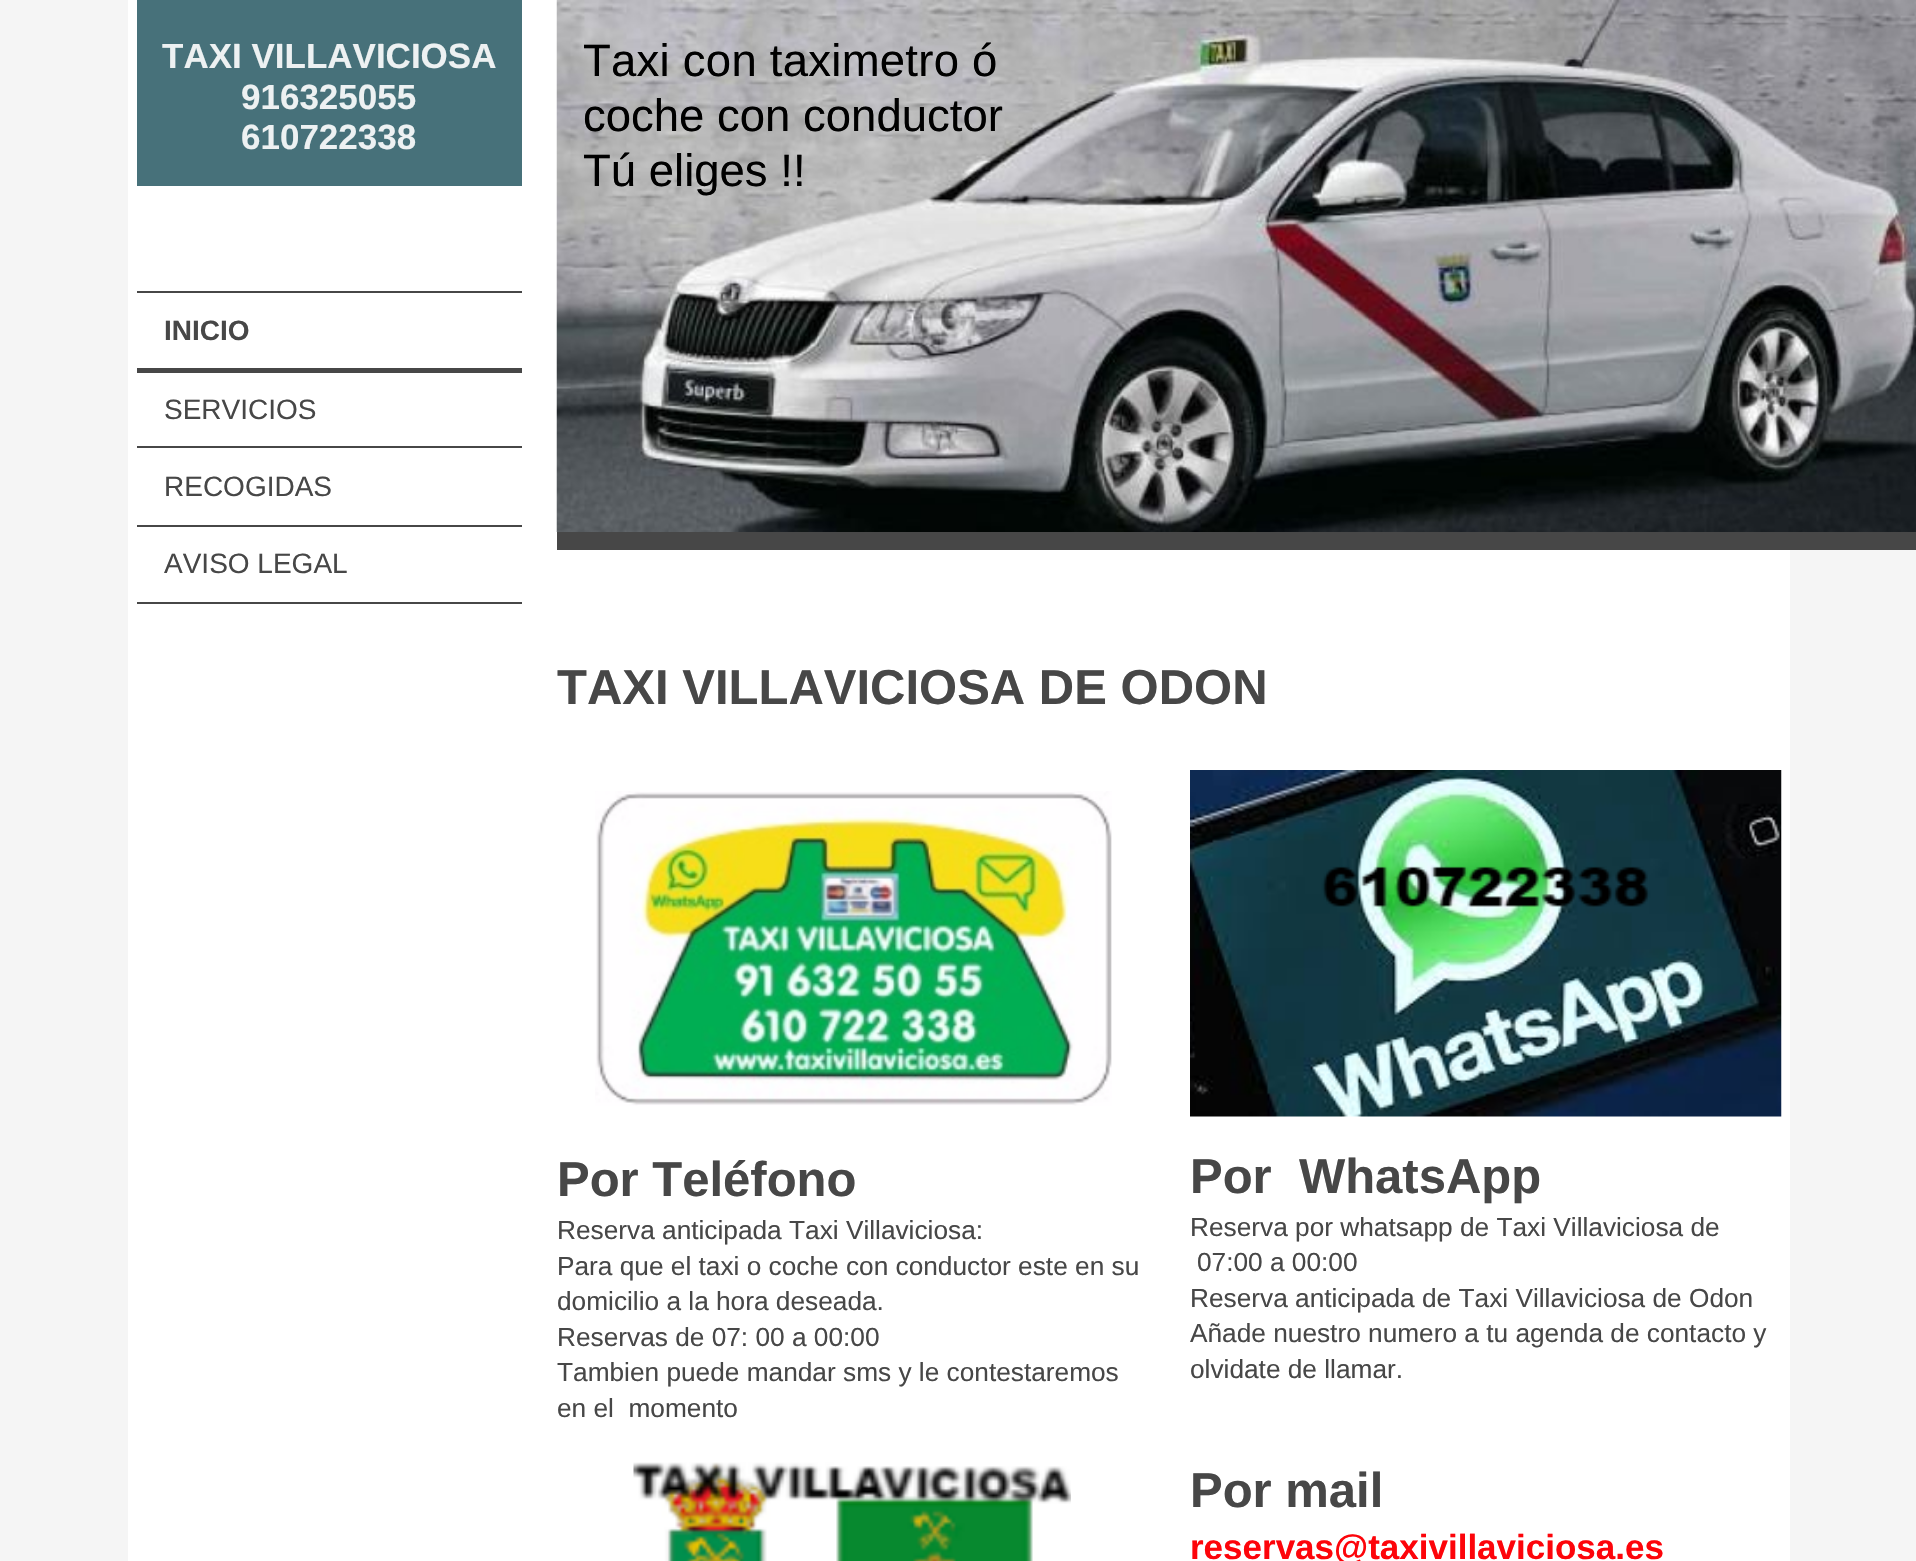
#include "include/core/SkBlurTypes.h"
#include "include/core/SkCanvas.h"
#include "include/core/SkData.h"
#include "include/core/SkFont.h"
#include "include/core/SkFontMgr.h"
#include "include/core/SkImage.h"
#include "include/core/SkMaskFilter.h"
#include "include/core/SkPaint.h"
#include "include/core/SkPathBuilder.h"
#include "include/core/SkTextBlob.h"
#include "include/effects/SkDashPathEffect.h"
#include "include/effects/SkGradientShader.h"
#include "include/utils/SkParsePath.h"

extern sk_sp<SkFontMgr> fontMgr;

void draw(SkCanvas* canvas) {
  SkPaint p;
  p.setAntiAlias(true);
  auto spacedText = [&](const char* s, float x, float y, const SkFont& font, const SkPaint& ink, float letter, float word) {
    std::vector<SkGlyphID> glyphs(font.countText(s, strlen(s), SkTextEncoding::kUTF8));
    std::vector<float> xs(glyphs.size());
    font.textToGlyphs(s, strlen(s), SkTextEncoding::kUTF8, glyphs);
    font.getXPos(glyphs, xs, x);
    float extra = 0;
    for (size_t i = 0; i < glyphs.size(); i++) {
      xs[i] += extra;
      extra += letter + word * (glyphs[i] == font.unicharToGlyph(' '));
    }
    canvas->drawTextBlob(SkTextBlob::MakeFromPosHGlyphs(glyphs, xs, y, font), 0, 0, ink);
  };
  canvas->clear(SkColorSetRGB(245, 245, 245));
  p.setColor(SK_ColorWHITE);
  canvas->drawRect(SkRect::MakeLTRB(128, 0, 1790, 1561), p);
  p.setColor(SkColorSetRGB(71, 113, 122));
  canvas->drawRect(SkRect::MakeLTRB(137, 0, 522, 186), p);
  p.setColor(SkColorSetRGB(71, 71, 71));
  canvas->drawRect(SkRect::MakeLTRB(137, 291, 522, 293), p);
  canvas->drawRect(SkRect::MakeLTRB(137, 368, 522, 373), p);
  canvas->drawRect(SkRect::MakeLTRB(137, 446, 522, 448), p);
  canvas->drawRect(SkRect::MakeLTRB(137, 525, 522, 527), p);
  canvas->drawRect(SkRect::MakeLTRB(137, 602, 522, 604), p);
  canvas->drawRect(SkRect::MakeLTRB(557, 532, 1916, 550), p);
  canvas->drawImageRect(SkImages::DeferredFromEncodedData(SkData::MakeFromFileName("images/1.png")), SkRect::MakeLTRB(556, 0, 1916, 532), SkSamplingOptions());
  canvas->drawImageRect(SkImages::DeferredFromEncodedData(SkData::MakeFromFileName("images/2.png")), SkRect::MakeLTRB(595, 791, 1112, 1106), SkSamplingOptions());
  canvas->drawImageRect(SkImages::DeferredFromEncodedData(SkData::MakeFromFileName("images/3.png")), SkRect::MakeLTRB(633, 1462, 1071, 1561), SkSamplingOptions());
  canvas->drawImageRect(SkImages::DeferredFromEncodedData(SkData::MakeFromFileName("images/4.png")), SkRect::MakeLTRB(1190, 770, 1782, 1117), SkSamplingOptions());
  SkFont font1(fontMgr->matchFamilyStyle("Liberation Sans", SkFontStyle::Bold()), 35);
  font1.setSubpixel(true);
  p.setColor(SkColorSetRGB(237, 241, 242));
  canvas->drawString("TAXI VILLAVICIOSA", 162, 68, font1, p);
  canvas->drawString("916325055", 241, 109, font1, p);
  canvas->drawString("610722338", 241, 149, font1, p);
  SkFont font2(fontMgr->matchFamilyStyle("Liberation Sans", SkFontStyle::Bold()), 28);
  font2.setSubpixel(true);
  p.setColor(SkColorSetRGB(71, 71, 71));
  canvas->drawString("INICIO", 164, 340, font2, p);
  SkFont font3(fontMgr->matchFamilyStyle("Liberation Sans", SkFontStyle::Normal()), 28);
  font3.setSubpixel(true);
  canvas->drawString("SERVICIOS", 164, 419, font3, p);
  canvas->drawString("RECOGIDAS", 164, 496, font3, p);
  canvas->drawString("AVISO LEGAL", 164, 573, font3, p);
  SkFont font4(fontMgr->matchFamilyStyle("Liberation Sans", SkFontStyle::Normal()), 45.5f);
  font4.setSubpixel(true);
  p.setColor(SK_ColorBLACK);
  spacedText("Taxi con taximetro ó", 583, 76, font4, p, 0.25f, 0);
  canvas->drawString("coche con conductor", 583, 131, font4, p);
  canvas->drawString("Tú eliges !!", 583, 186, font4, p);
  SkFont font5(fontMgr->matchFamilyStyle("Liberation Sans", SkFontStyle::Bold()), 49);
  font5.setSubpixel(true);
  p.setColor(SkColorSetRGB(71, 71, 71));
  canvas->drawString("TAXI VILLAVICIOSA DE ODON", 557, 704, font5, p);
  canvas->drawString("Por Teléfono", 557, 1196, font5, p);
  SkFont font6(fontMgr->matchFamilyStyle("Liberation Sans", SkFontStyle::Normal()), 26.25f);
  font6.setSubpixel(true);
  canvas->drawString("Reserva anticipada Taxi Villaviciosa:", 557, 1239, font6, p);
  canvas->drawString("Para que el taxi o coche con conductor este en su", 557, 1275, font6, p);
  canvas->drawString("domicilio a la hora deseada.", 557, 1310, font6, p);
  canvas->drawString("Reservas de 07: 00 a 00:00", 557, 1346, font6, p);
  canvas->drawString("Tambien puede mandar sms y le contestaremos", 557, 1381, font6, p);
  canvas->drawString("en el  momento", 557, 1417, font6, p);
  canvas->drawString("Por  WhatsApp", 1190, 1193, font5, p);
  canvas->drawString("Reserva por whatsapp de Taxi Villaviciosa de", 1190, 1236, font6, p);
  canvas->drawString("07:00 a 00:00", 1197, 1271, font6, p);
  canvas->drawString("Reserva anticipada de Taxi Villaviciosa de Odon", 1190, 1307, font6, p);
  canvas->drawString("Añade nuestro numero a tu agenda de contacto y", 1190, 1342, font6, p);
  canvas->drawString("olvidate de llamar.", 1190, 1378, font6, p);
  canvas->drawString("Por mail", 1190, 1507, font5, p);
  p.setColor(SkColorSetRGB(253, 4, 10));
  canvas->drawString("reservas@taxivillaviciosa.es", 1190, 1559, font1, p);
}
